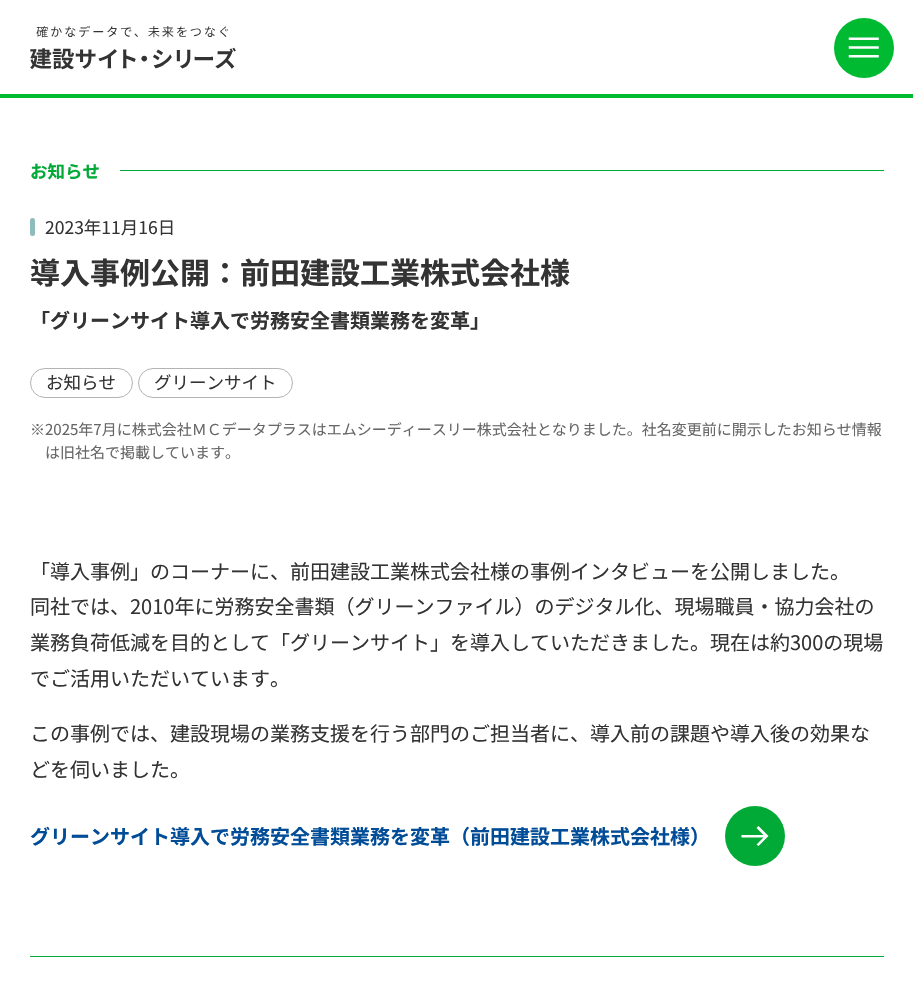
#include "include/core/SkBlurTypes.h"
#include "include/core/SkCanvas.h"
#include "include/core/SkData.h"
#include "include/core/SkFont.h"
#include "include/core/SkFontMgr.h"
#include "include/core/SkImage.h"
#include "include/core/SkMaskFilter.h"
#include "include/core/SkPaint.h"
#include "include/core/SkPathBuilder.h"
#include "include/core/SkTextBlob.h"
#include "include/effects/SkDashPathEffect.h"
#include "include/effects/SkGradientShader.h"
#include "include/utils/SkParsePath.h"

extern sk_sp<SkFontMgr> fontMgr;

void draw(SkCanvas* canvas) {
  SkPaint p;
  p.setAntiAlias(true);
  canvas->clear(SK_ColorWHITE);
  p.setColor(SkColorSetRGB(0, 187, 49));
  canvas->drawRect(SkRect::MakeLTRB(0, 94, 913, 98), p);
  canvas->drawImageRect(SkImages::DeferredFromEncodedData(SkData::MakeFromFileName("images/1.png")), SkRect::MakeLTRB(30, 25, 236, 70), SkSamplingOptions());
  canvas->drawCircle(864, 48, 30, p);
  canvas->drawImageRect(SkImages::DeferredFromEncodedData(SkData::MakeFromFileName("images/2.png")), SkRect::MakeLTRB(848, 37, 879, 58), SkSamplingOptions());
  p.setColor(SkColorSetRGB(1, 170, 54));
  canvas->drawRect(SkRect::MakeLTRB(120, 170, 884, 171), p);
  p.setColor(SkColorSetRGB(142, 187, 187));
  canvas->drawRoundRect(SkRect::MakeLTRB(30, 218, 35, 236), 2.5f, 2.5f, p);
  p.setStyle(SkPaint::kStroke_Style);
  p.setStrokeWidth(1);
  p.setColor(SkColorSetRGB(179, 179, 179));
  canvas->drawRoundRect(SkRect::MakeLTRB(30.5f, 368.5f, 132.5f, 397.5f), 14.5f, 14.5f, p);
  canvas->drawRoundRect(SkRect::MakeLTRB(138.5f, 368.5f, 292.5f, 397.5f), 14.5f, 14.5f, p);
  p.setStyle(SkPaint::kFill_Style);
  p.setColor(SkColorSetRGB(1, 170, 54));
  canvas->drawCircle(755, 836, 30, p);
  p.setColor(SK_ColorWHITE);
  canvas->drawPath(SkPathBuilder().moveTo(758.5f, 846).lineTo(756.5f, 844.5f).lineTo(763.5f, 837.5f).lineTo(741.5f, 837.5f).lineTo(741.5f, 835).lineTo(763.5f, 835).lineTo(756.5f, 828).lineTo(758.5f, 826).lineTo(768.5f, 836).close().detach(), p);
  p.setColor(SkColorSetRGB(1, 170, 54));
  canvas->drawRect(SkRect::MakeLTRB(30, 956, 884, 957), p);
  SkFont font1(fontMgr->matchFamilyStyle("Noto Sans JP", SkFontStyle::Bold()), 17.5f);
  font1.setSubpixel(true);
  canvas->drawString("お知らせ", 30, 178, font1, p);
  SkFont font2(fontMgr->matchFamilyStyle("Noto Sans JP", SkFontStyle::Normal()), 17.5f);
  font2.setSubpixel(true);
  p.setColor(SkColorSetRGB(51, 51, 51));
  canvas->drawString("2023年11月16日", 45, 234, font2, p);
  SkFont font3(fontMgr->matchFamilyStyle("Noto Sans JP", SkFontStyle::Bold()), 30);
  font3.setSubpixel(true);
  canvas->drawString("導入事例公開：前田建設工業株式会社様", 30, 284, font3, p);
  SkFont font4(fontMgr->matchFamilyStyle("Noto Sans JP", SkFontStyle::Bold()), 20);
  font4.setSubpixel(true);
  canvas->drawString("「グリーンサイト導入で労務安全書類業務を変革」", 30, 328, font4, p);
  canvas->drawString("お知らせ", 46, 389, font2, p);
  canvas->drawString("グリーンサイト", 154, 389, font2, p);
  SkFont font5(fontMgr->matchFamilyStyle("Noto Sans JP", SkFontStyle::Normal()), 15);
  font5.setSubpixel(true);
  p.setColor(SkColorSetRGB(102, 102, 102));
  canvas->drawString("※2025年7月に株式会社ＭＣデータプラスはエムシーディースリー株式会社となりました。社名変更前に開示したお知らせ情報", 30, 435, font5, p);
  canvas->drawString("は旧社名で掲載しています。", 45, 458, font5, p);
  SkFont font6(fontMgr->matchFamilyStyle("Noto Sans JP", SkFontStyle::Normal()), 20);
  font6.setSubpixel(true);
  p.setColor(SkColorSetRGB(51, 51, 51));
  canvas->drawString("「導入事例」のコーナーに、前田建設工業株式会社様の事例インタビューを公開しました。", 30, 579, font6, p);
  canvas->drawString("同社では、2010年に労務安全書類（グリーンファイル）のデジタル化、現場職員・協力会社の", 30, 614, font6, p);
  canvas->drawString("業務負荷低減を目的として「グリーンサイト」を導入していただきました。現在は約300の現場", 30, 650, font6, p);
  canvas->drawString("でご活用いただいています。", 30, 686, font6, p);
  canvas->drawString("この事例では、建設現場の業務支援を行う部門のご担当者に、導入前の課題や導入後の効果な", 30, 741, font6, p);
  canvas->drawString("どを伺いました。", 30, 777, font6, p);
  p.setColor(SkColorSetRGB(0, 76, 151));
  canvas->drawString("グリーンサイト導入で労務安全書類業務を変革（前田建設工業株式会社様）", 30, 844, font4, p);
}
